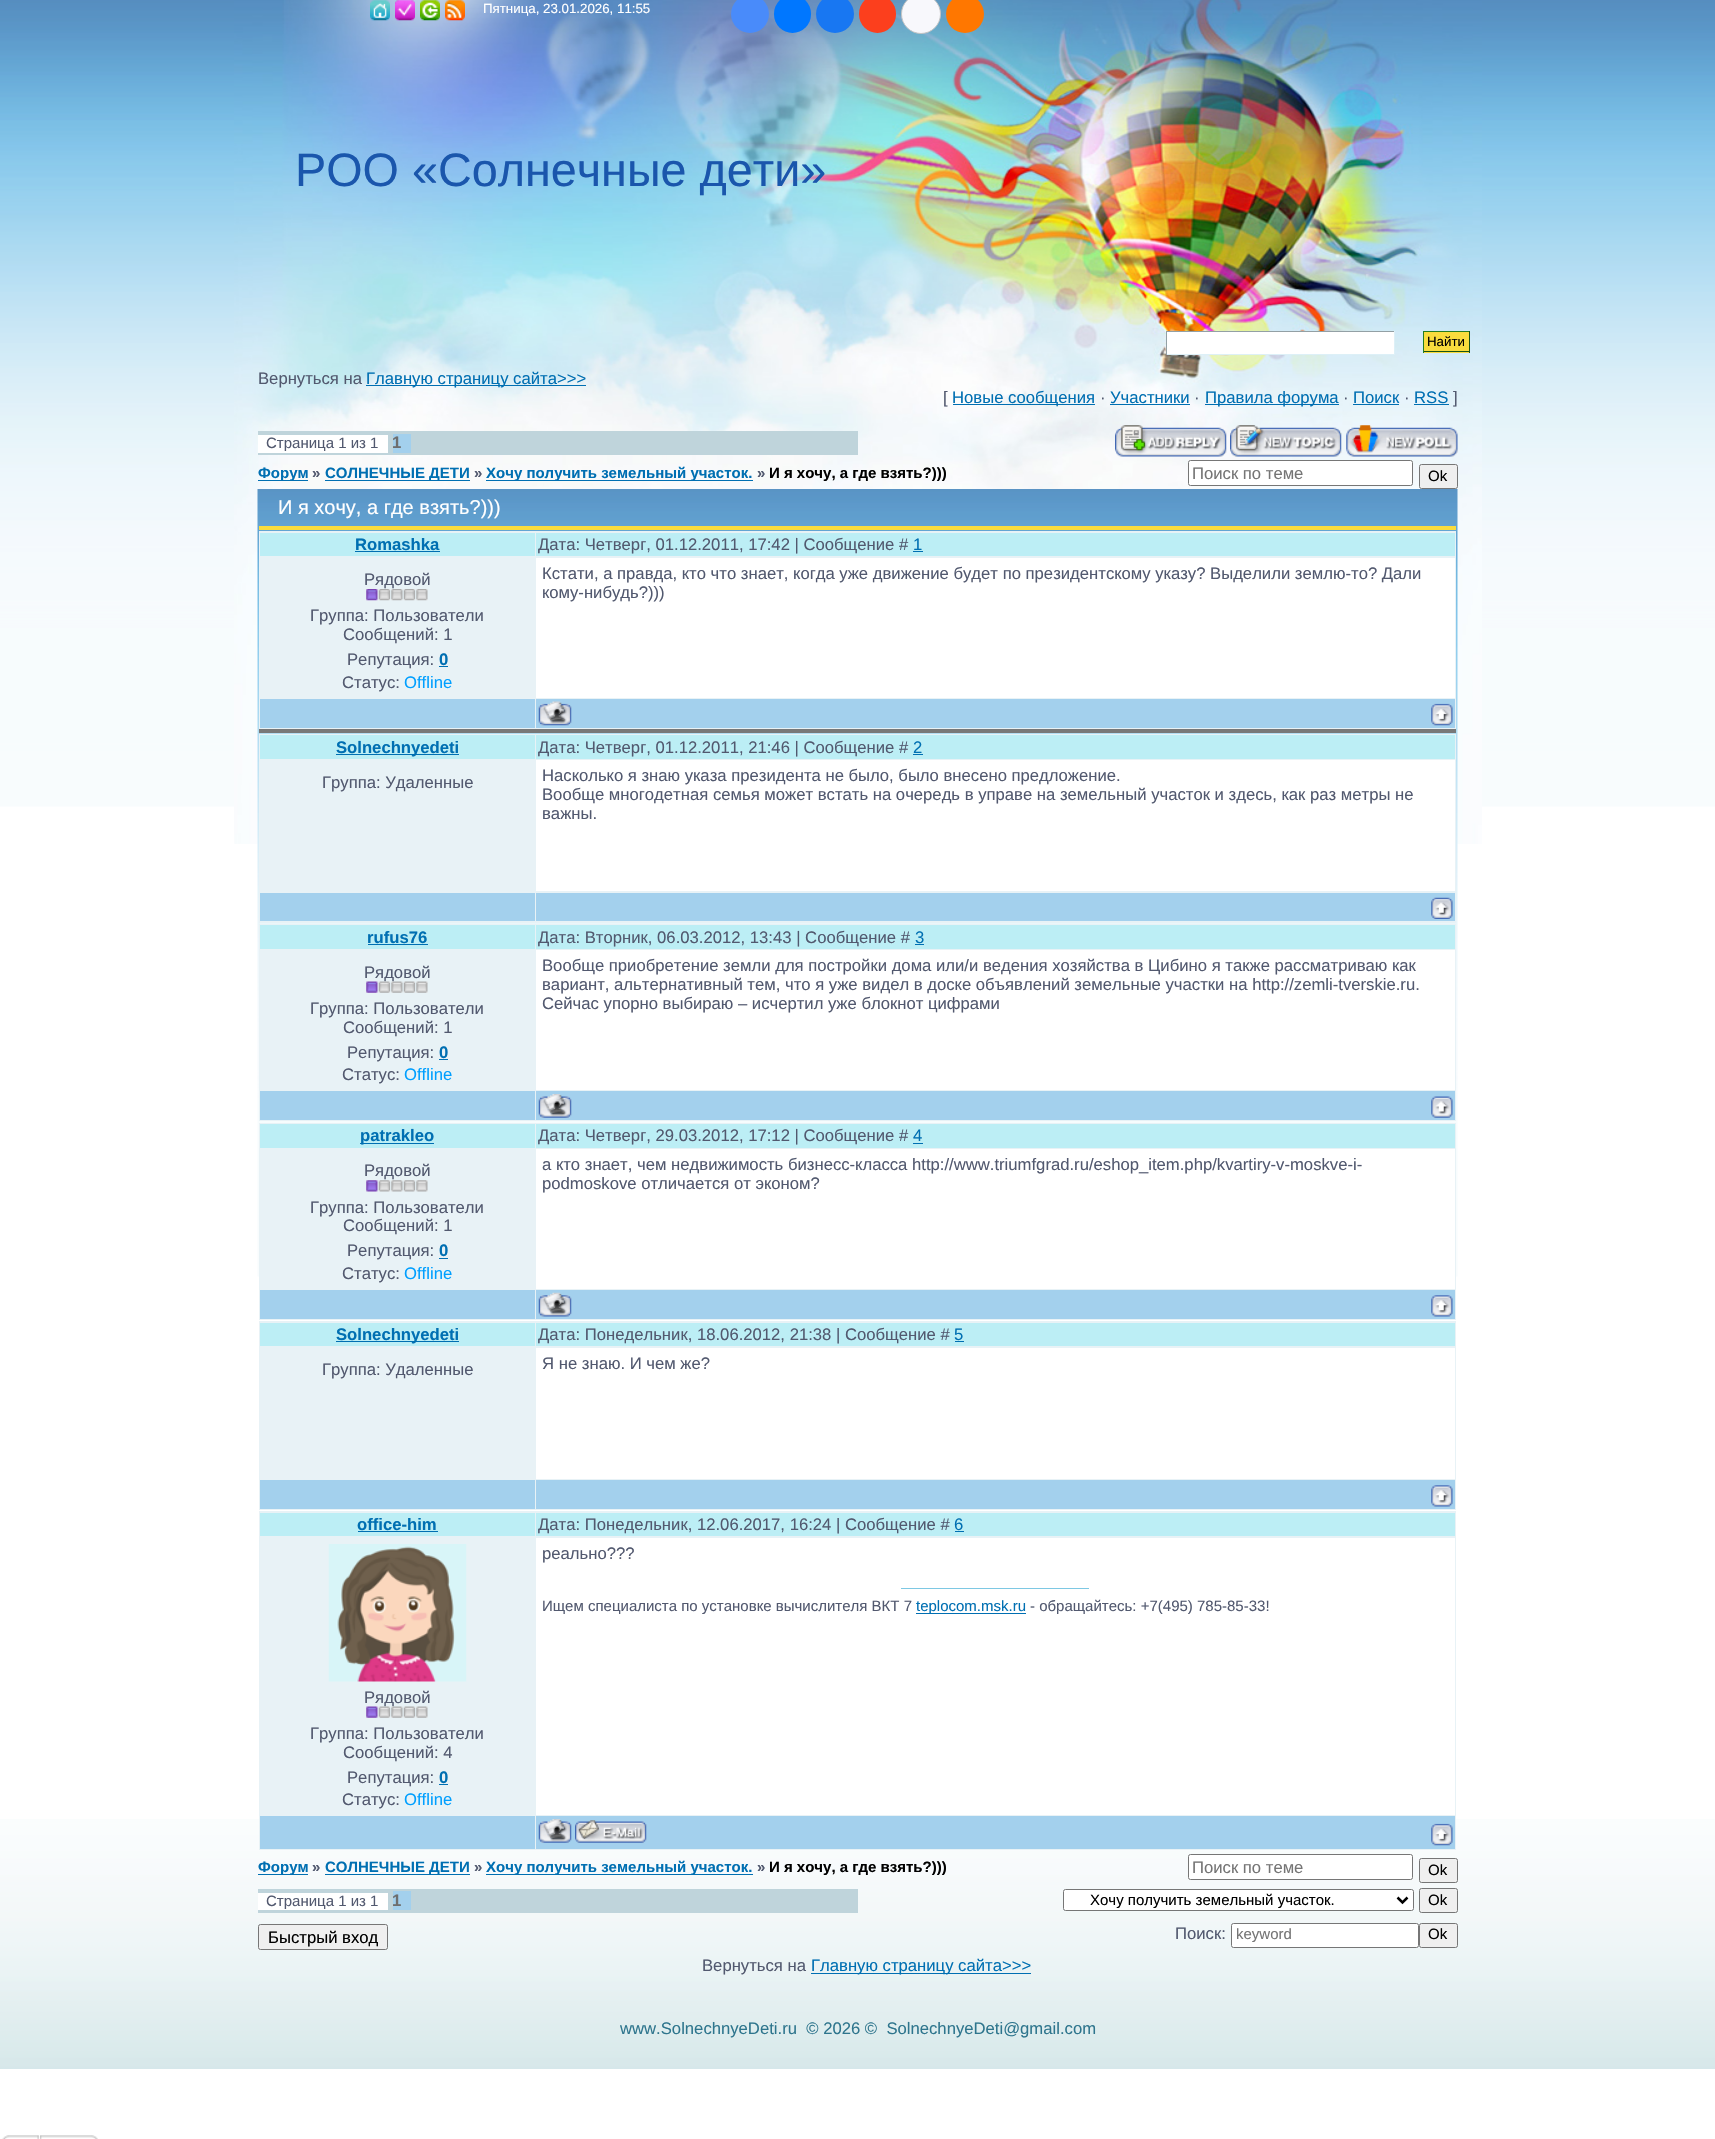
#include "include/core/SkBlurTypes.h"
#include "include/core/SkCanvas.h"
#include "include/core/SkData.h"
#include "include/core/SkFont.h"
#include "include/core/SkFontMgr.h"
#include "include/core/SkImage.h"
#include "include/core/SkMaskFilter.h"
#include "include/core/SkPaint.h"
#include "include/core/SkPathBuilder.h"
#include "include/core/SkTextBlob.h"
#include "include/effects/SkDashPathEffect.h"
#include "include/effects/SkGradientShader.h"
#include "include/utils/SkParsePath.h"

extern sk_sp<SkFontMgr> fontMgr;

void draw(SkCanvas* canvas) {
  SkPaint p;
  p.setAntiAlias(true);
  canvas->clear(SK_ColorWHITE);
  canvas->drawImageRect(SkImages::DeferredFromEncodedData(SkData::MakeFromFileName("images/1.png")), SkRect::MakeLTRB(0, 0, 1715, 807), SkSamplingOptions());
  canvas->drawImageRect(SkImages::DeferredFromEncodedData(SkData::MakeFromFileName("images/2.png")), SkRect::MakeLTRB(0, 1819, 1715, 2069), SkSamplingOptions());
  canvas->drawImageRect(SkImages::DeferredFromEncodedData(SkData::MakeFromFileName("images/3.png")), SkRect::MakeLTRB(234, 0, 1482, 844), SkSamplingOptions());
  canvas->drawImageRect(SkImages::DeferredFromEncodedData(SkData::MakeFromFileName("images/4.png")), SkRect::MakeLTRB(370, 0, 390, 21), SkSamplingOptions());
  canvas->drawImageRect(SkImages::DeferredFromEncodedData(SkData::MakeFromFileName("images/5.png")), SkRect::MakeLTRB(395, 0, 415, 21), SkSamplingOptions());
  canvas->drawImageRect(SkImages::DeferredFromEncodedData(SkData::MakeFromFileName("images/6.png")), SkRect::MakeLTRB(420, 0, 440, 21), SkSamplingOptions());
  canvas->drawImageRect(SkImages::DeferredFromEncodedData(SkData::MakeFromFileName("images/7.png")), SkRect::MakeLTRB(445, 0, 465, 21), SkSamplingOptions());
  p.setColor(SkColorSetRGB(73, 139, 250));
  canvas->drawCircle(750, 14, 19, p);
  p.setColor(SkColorSetRGB(0, 119, 255));
  canvas->drawRoundRect(SkRect::MakeLTRB(774, -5, 811, 33), 18.5f, 18.5f, p);
  p.setColor(SkColorSetRGB(24, 119, 242));
  canvas->drawCircle(835, 14, 19, p);
  p.setColor(SkColorSetRGB(252, 63, 29));
  canvas->drawRoundRect(SkRect::MakeLTRB(859, -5, 896, 33), 18.5f, 18.5f, p);
  p.setColor(SkColorSetRGB(248, 248, 252));
  canvas->drawCircle(921, 14, 19.5f, p);
  p.setStyle(SkPaint::kStroke_Style);
  p.setStrokeWidth(1);
  p.setColor(SkColorSetRGB(196, 196, 196));
  canvas->drawCircle(921, 14, 19.5f, p);
  p.setStyle(SkPaint::kFill_Style);
  p.setColor(SkColorSetRGB(255, 119, 0));
  canvas->drawCircle(965, 14, 19, p);
  p.setColor(SK_ColorWHITE);
  canvas->drawRect(SkRect::MakeLTRB(1167, 332, 1394, 354), p);
  p.setColor(SkColorSetRGB(147, 160, 165));
  canvas->drawRect(SkRect::MakeLTRB(1166, 331, 1395, 332), p);
  p.setColor(SkColorSetRGB(221, 240, 247));
  canvas->drawRect(SkRect::MakeLTRB(1394, 331, 1395, 355), p);
  canvas->drawRect(SkRect::MakeLTRB(1166, 354, 1395, 355), p);
  p.setColor(SkColorSetRGB(147, 160, 165));
  canvas->drawRect(SkRect::MakeLTRB(1166, 331, 1167, 355), p);
  p.setColor(SkColorSetRGB(249, 220, 61));
  canvas->drawRect(SkRect::MakeLTRB(1424, 332, 1469, 353), p);
  p.setColor(SkColorSetRGB(35, 124, 35));
  canvas->drawRect(SkRect::MakeLTRB(1423, 331, 1470, 332), p);
  p.setColor(SkColorSetRGB(23, 83, 23));
  canvas->drawRect(SkRect::MakeLTRB(1469, 331, 1470, 353), p);
  canvas->drawRect(SkRect::MakeLTRB(1423, 351, 1470, 352), p);
  p.setColor(SkColorSetRGB(35, 124, 35));
  canvas->drawRect(SkRect::MakeLTRB(1423, 331, 1424, 353), p);
  p.setColor(SkColorSetRGB(0, 111, 178));
  canvas->drawRect(SkRect::MakeLTRB(366, 385, 586, 386), p);
  canvas->drawRect(SkRect::MakeLTRB(953, 404, 1095, 405), p);
  canvas->drawRect(SkRect::MakeLTRB(1110, 404, 1190, 405), p);
  canvas->drawRect(SkRect::MakeLTRB(1205, 404, 1339, 405), p);
  canvas->drawRect(SkRect::MakeLTRB(1353, 404, 1399, 405), p);
  canvas->drawRect(SkRect::MakeLTRB(1414, 404, 1449, 405), p);
  p.setColor(SkColorSetRGB(191, 212, 219));
  canvas->drawRect(SkRect::MakeLTRB(258, 431, 858, 455), p);
  p.setColor(SK_ColorWHITE);
  canvas->drawRect(SkRect::MakeLTRB(258, 435, 388, 453), p);
  p.setColor(SkColorSetRGB(163, 208, 237));
  canvas->drawRect(SkRect::MakeLTRB(393, 434, 411, 453), p);
  canvas->drawImageRect(SkImages::DeferredFromEncodedData(SkData::MakeFromFileName("images/8.png")), SkRect::MakeLTRB(1115, 425, 1227, 457), SkSamplingOptions());
  canvas->drawImageRect(SkImages::DeferredFromEncodedData(SkData::MakeFromFileName("images/9.png")), SkRect::MakeLTRB(1230, 425, 1342, 457), SkSamplingOptions());
  canvas->drawImageRect(SkImages::DeferredFromEncodedData(SkData::MakeFromFileName("images/10.png")), SkRect::MakeLTRB(1346, 425, 1458, 457), SkSamplingOptions());
  p.setColor(SkColorSetRGB(0, 111, 178));
  canvas->drawRect(SkRect::MakeLTRB(258, 480, 308, 481), p);
  canvas->drawRect(SkRect::MakeLTRB(325, 480, 470, 481), p);
  canvas->drawRect(SkRect::MakeLTRB(486, 480, 753, 481), p);
  p.setColor(SK_ColorWHITE);
  canvas->drawRoundRect(SkRect::MakeLTRB(1188.5f, 460.5f, 1412.5f, 485.5f), 2, 2, p);
  p.setStyle(SkPaint::kStroke_Style);
  p.setColor(SkColorSetRGB(118, 118, 118));
  canvas->drawRoundRect(SkRect::MakeLTRB(1188.5f, 460.5f, 1412.5f, 485.5f), 2, 2, p);
  p.setStyle(SkPaint::kFill_Style);
  p.setColor(SkColorSetRGB(239, 239, 239));
  canvas->drawRoundRect(SkRect::MakeLTRB(1419.5f, 464.5f, 1457.5f, 488.5f), 2, 2, p);
  p.setStyle(SkPaint::kStroke_Style);
  p.setColor(SkColorSetRGB(118, 118, 118));
  canvas->drawRoundRect(SkRect::MakeLTRB(1419.5f, 464.5f, 1457.5f, 488.5f), 2, 2, p);
  canvas->drawImageRect(SkImages::DeferredFromEncodedData(SkData::MakeFromFileName("images/11.png")), SkRect::MakeLTRB(257, 489, 1458, 1277), SkSamplingOptions());
  p.setStyle(SkPaint::kFill_Style);
  p.setColor(SkColorSetRGB(249, 220, 61));
  canvas->drawRect(SkRect::MakeLTRB(259, 526, 1456, 530), p);
  p.setColor(SkColorSetRGB(232, 242, 246));
  canvas->drawRect(SkRect::MakeLTRB(259, 531, 1456, 729), p);
  p.setColor(SkColorSetRGB(120, 120, 120));
  canvas->drawRect(SkRect::MakeLTRB(259, 729, 1456, 733), p);
  p.setColor(SkColorSetRGB(188, 238, 245));
  canvas->drawRect(SkRect::MakeLTRB(260, 533, 535, 556), p);
  p.setColor(SkColorSetRGB(0, 111, 178));
  canvas->drawRect(SkRect::MakeLTRB(355, 551, 440, 552), p);
  p.setColor(SkColorSetRGB(188, 238, 245));
  canvas->drawRect(SkRect::MakeLTRB(536, 533, 1455, 556), p);
  p.setColor(SkColorSetRGB(0, 111, 178));
  canvas->drawRect(SkRect::MakeLTRB(913, 551, 923, 552), p);
  canvas->drawImageRect(SkImages::DeferredFromEncodedData(SkData::MakeFromFileName("images/12.png")), SkRect::MakeLTRB(366, 589, 428, 601), SkSamplingOptions());
  canvas->drawRect(SkRect::MakeLTRB(439, 666, 448, 667), p);
  p.setColor(SK_ColorWHITE);
  canvas->drawRect(SkRect::MakeLTRB(536, 558, 1455, 698), p);
  p.setColor(SkColorSetRGB(163, 208, 237));
  canvas->drawRect(SkRect::MakeLTRB(260, 699, 535, 728), p);
  canvas->drawRect(SkRect::MakeLTRB(536, 699, 1455, 728), p);
  canvas->drawImageRect(SkImages::DeferredFromEncodedData(SkData::MakeFromFileName("images/13.png")), SkRect::MakeLTRB(538, 701, 572, 726), SkSamplingOptions());
  canvas->drawImageRect(SkImages::DeferredFromEncodedData(SkData::MakeFromFileName("images/14.png")), SkRect::MakeLTRB(1431, 703, 1453, 726), SkSamplingOptions());
  p.setColor(SkColorSetRGB(232, 242, 246));
  canvas->drawRect(SkRect::MakeLTRB(259, 734, 1456, 923), p);
  p.setColor(SkColorSetRGB(188, 238, 245));
  canvas->drawRect(SkRect::MakeLTRB(260, 735, 535, 759), p);
  p.setColor(SkColorSetRGB(0, 111, 178));
  canvas->drawRect(SkRect::MakeLTRB(336, 754, 459, 755), p);
  p.setColor(SkColorSetRGB(188, 238, 245));
  canvas->drawRect(SkRect::MakeLTRB(536, 735, 1455, 759), p);
  p.setColor(SkColorSetRGB(0, 111, 178));
  canvas->drawRect(SkRect::MakeLTRB(913, 754, 923, 755), p);
  p.setColor(SK_ColorWHITE);
  canvas->drawRect(SkRect::MakeLTRB(536, 760, 1455, 891), p);
  p.setColor(SkColorSetRGB(163, 208, 237));
  canvas->drawRect(SkRect::MakeLTRB(260, 893, 535, 921), p);
  canvas->drawRect(SkRect::MakeLTRB(536, 893, 1455, 921), p);
  canvas->drawImageRect(SkImages::DeferredFromEncodedData(SkData::MakeFromFileName("images/15.png")), SkRect::MakeLTRB(1431, 897, 1453, 919), SkSamplingOptions());
  p.setColor(SkColorSetRGB(232, 242, 246));
  canvas->drawRect(SkRect::MakeLTRB(259, 924, 1456, 1121), p);
  p.setColor(SkColorSetRGB(188, 238, 245));
  canvas->drawRect(SkRect::MakeLTRB(260, 925, 535, 949), p);
  p.setColor(SkColorSetRGB(0, 111, 178));
  canvas->drawRect(SkRect::MakeLTRB(368, 944, 428, 945), p);
  p.setColor(SkColorSetRGB(188, 238, 245));
  canvas->drawRect(SkRect::MakeLTRB(536, 925, 1455, 949), p);
  p.setColor(SkColorSetRGB(0, 111, 178));
  canvas->drawRect(SkRect::MakeLTRB(915, 944, 924, 945), p);
  canvas->drawRect(SkRect::MakeLTRB(439, 1059, 448, 1060), p);
  p.setColor(SK_ColorWHITE);
  canvas->drawRect(SkRect::MakeLTRB(536, 950, 1455, 1090), p);
  p.setColor(SkColorSetRGB(163, 208, 237));
  canvas->drawRect(SkRect::MakeLTRB(260, 1091, 535, 1120), p);
  canvas->drawRect(SkRect::MakeLTRB(536, 1091, 1455, 1120), p);
  canvas->drawImageRect(SkImages::DeferredFromEncodedData(SkData::MakeFromFileName("images/17.png")), SkRect::MakeLTRB(538, 1094, 572, 1118), SkSamplingOptions());
  canvas->drawImageRect(SkImages::DeferredFromEncodedData(SkData::MakeFromFileName("images/18.png")), SkRect::MakeLTRB(1431, 1096, 1453, 1118), SkSamplingOptions());
  p.setColor(SkColorSetRGB(232, 242, 246));
  canvas->drawRect(SkRect::MakeLTRB(259, 1123, 1456, 1320), p);
  p.setColor(SkColorSetRGB(188, 238, 245));
  canvas->drawRect(SkRect::MakeLTRB(260, 1124, 535, 1148), p);
  p.setColor(SkColorSetRGB(0, 111, 178));
  canvas->drawRect(SkRect::MakeLTRB(360, 1143, 434, 1144), p);
  p.setColor(SkColorSetRGB(188, 238, 245));
  canvas->drawRect(SkRect::MakeLTRB(536, 1124, 1455, 1148), p);
  p.setColor(SkColorSetRGB(0, 111, 178));
  canvas->drawRect(SkRect::MakeLTRB(913, 1143, 923, 1144), p);
  canvas->drawImageRect(SkImages::DeferredFromEncodedData(SkData::MakeFromFileName("images/19.png")), SkRect::MakeLTRB(366, 1180, 428, 1192), SkSamplingOptions());
  canvas->drawRect(SkRect::MakeLTRB(439, 1258, 448, 1259), p);
  p.setColor(SK_ColorWHITE);
  canvas->drawRect(SkRect::MakeLTRB(536, 1149, 1455, 1289), p);
  p.setColor(SkColorSetRGB(163, 208, 237));
  canvas->drawRect(SkRect::MakeLTRB(260, 1290, 535, 1319), p);
  canvas->drawRect(SkRect::MakeLTRB(536, 1290, 1455, 1319), p);
  canvas->drawImageRect(SkImages::DeferredFromEncodedData(SkData::MakeFromFileName("images/20.png")), SkRect::MakeLTRB(538, 1292, 572, 1317), SkSamplingOptions());
  canvas->drawImageRect(SkImages::DeferredFromEncodedData(SkData::MakeFromFileName("images/21.png")), SkRect::MakeLTRB(1431, 1295, 1453, 1317), SkSamplingOptions());
  p.setColor(SkColorSetRGB(232, 242, 246));
  canvas->drawRect(SkRect::MakeLTRB(259, 1321, 1456, 1510), p);
  p.setColor(SkColorSetRGB(188, 238, 245));
  canvas->drawRect(SkRect::MakeLTRB(260, 1323, 535, 1346), p);
  p.setColor(SkColorSetRGB(0, 111, 178));
  canvas->drawRect(SkRect::MakeLTRB(336, 1341, 459, 1342), p);
  p.setColor(SkColorSetRGB(188, 238, 245));
  canvas->drawRect(SkRect::MakeLTRB(536, 1323, 1455, 1346), p);
  p.setColor(SkColorSetRGB(0, 111, 178));
  canvas->drawRect(SkRect::MakeLTRB(955, 1341, 964, 1342), p);
  p.setColor(SK_ColorWHITE);
  canvas->drawRect(SkRect::MakeLTRB(536, 1348, 1455, 1479), p);
  p.setColor(SkColorSetRGB(163, 208, 237));
  canvas->drawRect(SkRect::MakeLTRB(260, 1480, 535, 1509), p);
  canvas->drawRect(SkRect::MakeLTRB(536, 1480, 1455, 1509), p);
  canvas->drawImageRect(SkImages::DeferredFromEncodedData(SkData::MakeFromFileName("images/21.png")), SkRect::MakeLTRB(1431, 1485, 1453, 1507), SkSamplingOptions());
  p.setColor(SkColorSetRGB(232, 242, 246));
  canvas->drawRect(SkRect::MakeLTRB(259, 1511, 1456, 1850), p);
  p.setColor(SkColorSetRGB(188, 238, 245));
  canvas->drawRect(SkRect::MakeLTRB(260, 1513, 535, 1536), p);
  p.setColor(SkColorSetRGB(0, 111, 178));
  canvas->drawRect(SkRect::MakeLTRB(358, 1531, 438, 1532), p);
  p.setColor(SkColorSetRGB(188, 238, 245));
  canvas->drawRect(SkRect::MakeLTRB(536, 1513, 1455, 1536), p);
  p.setColor(SkColorSetRGB(0, 111, 178));
  canvas->drawRect(SkRect::MakeLTRB(955, 1531, 964, 1532), p);
  p.setColor(SK_ColorWHITE);
  canvas->drawRect(SkRect::MakeLTRB(536, 1538, 1455, 1815), p);
  p.setColor(SkColorSetRGB(126, 200, 227));
  canvas->drawRect(SkRect::MakeLTRB(901, 1588, 1089, 1589), p);
  p.setColor(SkColorSetRGB(0, 111, 178));
  canvas->drawRect(SkRect::MakeLTRB(916, 1613, 1026, 1614), p);
  canvas->drawImageRect(SkImages::DeferredFromEncodedData(SkData::MakeFromFileName("images/22.png")), SkRect::MakeLTRB(328, 1544, 467, 1682), SkSamplingOptions());
  canvas->drawRect(SkRect::MakeLTRB(439, 1784, 448, 1785), p);
  p.setColor(SkColorSetRGB(163, 208, 237));
  canvas->drawRect(SkRect::MakeLTRB(260, 1816, 535, 1849), p);
  canvas->drawRect(SkRect::MakeLTRB(536, 1816, 1455, 1849), p);
  canvas->drawImageRect(SkImages::DeferredFromEncodedData(SkData::MakeFromFileName("images/17.png")), SkRect::MakeLTRB(538, 1819, 572, 1843), SkSamplingOptions());
  canvas->drawImageRect(SkImages::DeferredFromEncodedData(SkData::MakeFromFileName("images/23.png")), SkRect::MakeLTRB(575, 1820, 647, 1843), SkSamplingOptions());
  canvas->drawImageRect(SkImages::DeferredFromEncodedData(SkData::MakeFromFileName("images/14.png")), SkRect::MakeLTRB(1431, 1823, 1453, 1846), SkSamplingOptions());
  p.setColor(SkColorSetRGB(0, 111, 178));
  canvas->drawRect(SkRect::MakeLTRB(258, 1874, 308, 1875), p);
  canvas->drawRect(SkRect::MakeLTRB(325, 1874, 470, 1875), p);
  canvas->drawRect(SkRect::MakeLTRB(486, 1874, 753, 1875), p);
  p.setColor(SK_ColorWHITE);
  canvas->drawRoundRect(SkRect::MakeLTRB(1188.5f, 1854.5f, 1412.5f, 1879.5f), 2, 2, p);
  p.setStyle(SkPaint::kStroke_Style);
  p.setColor(SkColorSetRGB(118, 118, 118));
  canvas->drawRoundRect(SkRect::MakeLTRB(1188.5f, 1854.5f, 1412.5f, 1879.5f), 2, 2, p);
  p.setStyle(SkPaint::kFill_Style);
  p.setColor(SkColorSetRGB(239, 239, 239));
  canvas->drawRoundRect(SkRect::MakeLTRB(1419.5f, 1858.5f, 1457.5f, 1882.5f), 2, 2, p);
  p.setStyle(SkPaint::kStroke_Style);
  p.setColor(SkColorSetRGB(118, 118, 118));
  canvas->drawRoundRect(SkRect::MakeLTRB(1419.5f, 1858.5f, 1457.5f, 1882.5f), 2, 2, p);
  p.setStyle(SkPaint::kFill_Style);
  p.setColor(SkColorSetRGB(191, 212, 219));
  canvas->drawRect(SkRect::MakeLTRB(258, 1889, 858, 1913), p);
  p.setColor(SK_ColorWHITE);
  canvas->drawRect(SkRect::MakeLTRB(258, 1893, 388, 1910), p);
  p.setColor(SkColorSetRGB(163, 208, 237));
  canvas->drawRect(SkRect::MakeLTRB(393, 1891, 411, 1910), p);
  p.setColor(SK_ColorWHITE);
  canvas->drawRoundRect(SkRect::MakeLTRB(1063.5f, 1889.5f, 1413.5f, 1910.5f), 2, 2, p);
  p.setStyle(SkPaint::kStroke_Style);
  p.setColor(SkColorSetRGB(118, 118, 118));
  canvas->drawRoundRect(SkRect::MakeLTRB(1063.5f, 1889.5f, 1413.5f, 1910.5f), 2, 2, p);
  p.setStrokeWidth(2.5f);
  p.setColor(SK_ColorBLACK);
  canvas->drawPath(SkPathBuilder().moveTo(1397.5f, 1897.5f).lineTo(1402.5f, 1902.5f).lineTo(1407.5f, 1897.5f).detach(), p);
  p.setStyle(SkPaint::kFill_Style);
  p.setColor(SkColorSetRGB(239, 239, 239));
  canvas->drawRoundRect(SkRect::MakeLTRB(1419.5f, 1888.5f, 1457.5f, 1912.5f), 2, 2, p);
  p.setStyle(SkPaint::kStroke_Style);
  p.setStrokeWidth(1);
  p.setColor(SkColorSetRGB(118, 118, 118));
  canvas->drawRoundRect(SkRect::MakeLTRB(1419.5f, 1888.5f, 1457.5f, 1912.5f), 2, 2, p);
  p.setStyle(SkPaint::kFill_Style);
  p.setColor(SkColorSetRGB(239, 239, 239));
  canvas->drawRoundRect(SkRect::MakeLTRB(258.5f, 1924.5f, 387.5f, 1949.5f), 2, 2, p);
  p.setStyle(SkPaint::kStroke_Style);
  p.setColor(SkColorSetRGB(118, 118, 118));
  canvas->drawRoundRect(SkRect::MakeLTRB(258.5f, 1924.5f, 387.5f, 1949.5f), 2, 2, p);
  p.setStyle(SkPaint::kFill_Style);
  p.setColor(SK_ColorWHITE);
  canvas->drawRoundRect(SkRect::MakeLTRB(1231.5f, 1923.5f, 1418.5f, 1947.5f), 2, 2, p);
  p.setStyle(SkPaint::kStroke_Style);
  p.setColor(SkColorSetRGB(118, 118, 118));
  canvas->drawRoundRect(SkRect::MakeLTRB(1231.5f, 1923.5f, 1418.5f, 1947.5f), 2, 2, p);
  p.setStyle(SkPaint::kFill_Style);
  p.setColor(SkColorSetRGB(239, 239, 239));
  canvas->drawRoundRect(SkRect::MakeLTRB(1419.5f, 1923.5f, 1457.5f, 1947.5f), 2, 2, p);
  p.setStyle(SkPaint::kStroke_Style);
  p.setColor(SkColorSetRGB(118, 118, 118));
  canvas->drawRoundRect(SkRect::MakeLTRB(1419.5f, 1923.5f, 1457.5f, 1947.5f), 2, 2, p);
  p.setStyle(SkPaint::kFill_Style);
  p.setColor(SkColorSetRGB(0, 111, 178));
  canvas->drawRect(SkRect::MakeLTRB(811, 1973, 1031, 1974), p);
  canvas->drawImageRect(SkImages::DeferredFromEncodedData(SkData::MakeFromFileName("images/24.png")), SkRect::MakeLTRB(2, 2135, 98, 2139), SkSamplingOptions());
  SkFont font1(fontMgr->matchFamilyStyle("Liberation Sans", SkFontStyle::Normal()), 13.3f);
  font1.setSubpixel(true);
  p.setColor(SK_ColorWHITE);
  canvas->drawString("Пятница, 23.01.2026, 11:55", 483, 13, font1, p);
  SkFont font2(fontMgr->matchFamilyStyle("Liberation Sans", SkFontStyle::Normal()), 46.75f);
  font2.setSubpixel(true);
  p.setColor(SkColorSetRGB(26, 86, 172));
  canvas->drawString("РОО «Солнечные дети»", 295, 186, font2, p);
  p.setColor(SK_ColorBLACK);
  canvas->drawString("Найти", 1427, 346, font1, p);
  SkFont font3(fontMgr->matchFamilyStyle("Liberation Sans", SkFontStyle::Normal()), 16.67f);
  font3.setSubpixel(true);
  p.setColor(SkColorSetRGB(82, 89, 111));
  canvas->drawString("Вернуться на", 258, 384, font3, p);
  p.setColor(SkColorSetRGB(0, 111, 178));
  canvas->drawString("Главную страницу сайта>>>", 366, 384, font3, p);
  p.setColor(SkColorSetRGB(82, 89, 111));
  canvas->drawString("[", 943, 403, font3, p);
  p.setColor(SkColorSetRGB(0, 111, 178));
  canvas->drawString("Новые сообщения", 952, 403, font3, p);
  p.setColor(SkColorSetRGB(82, 89, 111));
  canvas->drawString("·", 1100, 403, font3, p);
  p.setColor(SkColorSetRGB(0, 111, 178));
  canvas->drawString("Участники", 1110, 403, font3, p);
  p.setColor(SkColorSetRGB(82, 89, 111));
  canvas->drawString("·", 1194, 403, font3, p);
  p.setColor(SkColorSetRGB(0, 111, 178));
  canvas->drawString("Правила форума", 1205, 403, font3, p);
  p.setColor(SkColorSetRGB(82, 89, 111));
  canvas->drawString("·", 1343, 403, font3, p);
  p.setColor(SkColorSetRGB(0, 111, 178));
  canvas->drawString("Поиск", 1353, 403, font3, p);
  p.setColor(SkColorSetRGB(82, 89, 111));
  canvas->drawString("·", 1404, 403, font3, p);
  p.setColor(SkColorSetRGB(0, 111, 178));
  canvas->drawString("RSS", 1414, 403, font3, p);
  p.setColor(SkColorSetRGB(82, 89, 111));
  canvas->drawString("]", 1453, 403, font3, p);
  SkFont font4(fontMgr->matchFamilyStyle("Liberation Sans", SkFontStyle::Normal()), 15);
  font4.setSubpixel(true);
  canvas->drawString("Страница 1 из 1", 266, 448, font4, p);
  SkFont font5(fontMgr->matchFamilyStyle("Liberation Sans", SkFontStyle::Bold()), 16.67f);
  font5.setSubpixel(true);
  p.setColor(SkColorSetRGB(110, 110, 110));
  canvas->drawString("1", 392, 448, font5, p);
  SkFont font6(fontMgr->matchFamilyStyle("Liberation Sans", SkFontStyle::Bold()), 15);
  font6.setSubpixel(true);
  p.setColor(SkColorSetRGB(0, 111, 178));
  canvas->drawString("Форум", 258, 478, font6, p);
  p.setColor(SkColorSetRGB(82, 89, 111));
  canvas->drawString("»", 312, 478, font6, p);
  p.setColor(SkColorSetRGB(0, 111, 178));
  canvas->drawString("СОЛНЕЧНЫЕ ДЕТИ", 325, 478, font6, p);
  p.setColor(SkColorSetRGB(82, 89, 111));
  canvas->drawString("»", 474, 478, font6, p);
  p.setColor(SkColorSetRGB(0, 111, 178));
  canvas->drawString("Хочу получить земельный участок.", 486, 478, font6, p);
  p.setColor(SkColorSetRGB(82, 89, 111));
  canvas->drawString("»", 757, 478, font6, p);
  p.setColor(SK_ColorBLACK);
  canvas->drawString("И я хочу, а где взять?)))", 769, 478, font6, p);
  p.setColor(SkColorSetRGB(117, 117, 117));
  canvas->drawString("Поиск по теме", 1192, 479, font3, p);
  p.setColor(SK_ColorBLACK);
  canvas->drawString("Ok", 1428, 481, font4, p);
  SkFont font7(fontMgr->matchFamilyStyle("Liberation Sans", SkFontStyle::Normal()), 20);
  font7.setSubpixel(true);
  p.setColor(SK_ColorWHITE);
  canvas->drawString("И я хочу, а где взять?)))", 278, 514, font7, p);
  p.setColor(SkColorSetRGB(0, 111, 178));
  canvas->drawString("Romashka", 355, 550, font5, p);
  p.setColor(SkColorSetRGB(82, 89, 111));
  canvas->drawString("Дата: Четверг, 01.12.2011, 17:42 | Сообщение #", 538, 550, font3, p);
  p.setColor(SkColorSetRGB(0, 111, 178));
  canvas->drawString("1", 913, 550, font3, p);
  p.setColor(SkColorSetRGB(82, 89, 111));
  canvas->drawString("Рядовой", 364, 585, font3, p);
  canvas->drawString("Группа: Пользователи", 310, 621, font3, p);
  canvas->drawString("Сообщений: 1", 343, 640, font3, p);
  canvas->drawString("Репутация:", 347, 665, font3, p);
  p.setColor(SkColorSetRGB(0, 111, 178));
  canvas->drawString("0", 439, 665, font5, p);
  p.setColor(SkColorSetRGB(82, 89, 111));
  canvas->drawString("Статус:", 342, 688, font3, p);
  p.setColor(SkColorSetRGB(0, 159, 255));
  canvas->drawString("Offline", 404, 688, font3, p);
  p.setColor(SkColorSetRGB(82, 89, 111));
  canvas->drawString("Кстати, а правда, кто что знает, когда уже движение будет по президентскому указу? Выделили землю-то? Дали", 542, 579, font3, p);
  canvas->drawString("кому-нибудь?)))", 542, 598, font3, p);
  p.setColor(SkColorSetRGB(0, 111, 178));
  canvas->drawString("Solnechnyedeti", 336, 753, font5, p);
  p.setColor(SkColorSetRGB(82, 89, 111));
  canvas->drawString("Дата: Четверг, 01.12.2011, 21:46 | Сообщение #", 538, 753, font3, p);
  p.setColor(SkColorSetRGB(0, 111, 178));
  canvas->drawString("2", 913, 753, font3, p);
  p.setColor(SkColorSetRGB(82, 89, 111));
  canvas->drawString("Группа: Удаленные", 322, 788, font3, p);
  canvas->drawString("Насколько я знаю указа президента не было, было внесено предложение.", 542, 781, font3, p);
  canvas->drawString("Вообще многодетная семья может встать на очередь в управе на земельный участок и здесь, как раз метры не", 542, 800, font3, p);
  canvas->drawString("важны.", 542, 819, font3, p);
  p.setColor(SkColorSetRGB(0, 111, 178));
  canvas->drawString("rufus76", 367, 943, font5, p);
  p.setColor(SkColorSetRGB(82, 89, 111));
  canvas->drawString("Дата: Вторник, 06.03.2012, 13:43 | Сообщение #", 538, 943, font3, p);
  p.setColor(SkColorSetRGB(0, 111, 178));
  canvas->drawString("3", 915, 943, font3, p);
  p.setColor(SkColorSetRGB(82, 89, 111));
  canvas->drawString("Рядовой", 364, 978, font3, p);
  canvas->drawImageRect(SkImages::DeferredFromEncodedData(SkData::MakeFromFileName("images/16.png")), SkRect::MakeLTRB(366, 981, 428, 993), SkSamplingOptions());
  canvas->drawString("Группа: Пользователи", 310, 1014, font3, p);
  canvas->drawString("Сообщений: 1", 343, 1033, font3, p);
  canvas->drawString("Репутация:", 347, 1058, font3, p);
  p.setColor(SkColorSetRGB(0, 111, 178));
  canvas->drawString("0", 439, 1058, font5, p);
  p.setColor(SkColorSetRGB(82, 89, 111));
  canvas->drawString("Статус:", 342, 1080, font3, p);
  p.setColor(SkColorSetRGB(0, 159, 255));
  canvas->drawString("Offline", 404, 1080, font3, p);
  p.setColor(SkColorSetRGB(82, 89, 111));
  canvas->drawString("Вообще приобретение земли для постройки дома или/и ведения хозяйства в Цибино я также рассматриваю как", 542, 971, font3, p);
  canvas->drawString("вариант, альтернативный тем, что я уже видел в доске объявлений земельные участки на http://zemli-tverskie.ru.", 542, 990, font3, p);
  canvas->drawString("Сейчас упорно выбираю – исчертил уже блокнот цифрами", 542, 1009, font3, p);
  p.setColor(SkColorSetRGB(0, 111, 178));
  canvas->drawString("patrakleo", 360, 1141, font5, p);
  p.setColor(SkColorSetRGB(82, 89, 111));
  canvas->drawString("Дата: Четверг, 29.03.2012, 17:12 | Сообщение #", 538, 1141, font3, p);
  p.setColor(SkColorSetRGB(0, 111, 178));
  canvas->drawString("4", 913, 1141, font3, p);
  p.setColor(SkColorSetRGB(82, 89, 111));
  canvas->drawString("Рядовой", 364, 1176, font3, p);
  canvas->drawString("Группа: Пользователи", 310, 1213, font3, p);
  canvas->drawString("Сообщений: 1", 343, 1231, font3, p);
  canvas->drawString("Репутация:", 347, 1256, font3, p);
  p.setColor(SkColorSetRGB(0, 111, 178));
  canvas->drawString("0", 439, 1256, font5, p);
  p.setColor(SkColorSetRGB(82, 89, 111));
  canvas->drawString("Статус:", 342, 1279, font3, p);
  p.setColor(SkColorSetRGB(0, 159, 255));
  canvas->drawString("Offline", 404, 1279, font3, p);
  p.setColor(SkColorSetRGB(82, 89, 111));
  canvas->drawString("а кто знает, чем недвижимость бизнесс-класса http://www.triumfgrad.ru/eshop_item.php/kvartiry-v-moskve-i-", 542, 1170, font3, p);
  canvas->drawString("podmoskove отличается от эконом?", 542, 1189, font3, p);
  p.setColor(SkColorSetRGB(0, 111, 178));
  canvas->drawString("Solnechnyedeti", 336, 1340, font5, p);
  p.setColor(SkColorSetRGB(82, 89, 111));
  canvas->drawString("Дата: Понедельник, 18.06.2012, 21:38 | Сообщение #", 538, 1340, font3, p);
  p.setColor(SkColorSetRGB(0, 111, 178));
  canvas->drawString("5", 954, 1340, font3, p);
  p.setColor(SkColorSetRGB(82, 89, 111));
  canvas->drawString("Группа: Удаленные", 322, 1375, font3, p);
  canvas->drawString("Я не знаю. И чем же?", 542, 1369, font3, p);
  p.setColor(SkColorSetRGB(0, 111, 178));
  canvas->drawString("office-him", 357, 1530, font5, p);
  p.setColor(SkColorSetRGB(82, 89, 111));
  canvas->drawString("Дата: Понедельник, 12.06.2017, 16:24 | Сообщение #", 538, 1530, font3, p);
  p.setColor(SkColorSetRGB(0, 111, 178));
  canvas->drawString("6", 954, 1530, font3, p);
  p.setColor(SkColorSetRGB(82, 89, 111));
  canvas->drawString("реально?\077?", 542, 1559, font3, p);
  canvas->drawString("Ищем специалиста по установке вычислителя ВКТ 7", 542, 1611, font4, p);
  p.setColor(SkColorSetRGB(0, 111, 178));
  canvas->drawString("teplocom.msk.ru", 916, 1611, font4, p);
  p.setColor(SkColorSetRGB(82, 89, 111));
  canvas->drawString("- обращайтесь: +7(495) 785-85-33!", 1030, 1611, font4, p);
  canvas->drawString("Рядовой", 364, 1703, font3, p);
  canvas->drawImageRect(SkImages::DeferredFromEncodedData(SkData::MakeFromFileName("images/16.png")), SkRect::MakeLTRB(366, 1706, 428, 1718), SkSamplingOptions());
  canvas->drawString("Группа: Пользователи", 310, 1739, font3, p);
  canvas->drawString("Сообщений: 4", 343, 1758, font3, p);
  canvas->drawString("Репутация:", 347, 1783, font3, p);
  p.setColor(SkColorSetRGB(0, 111, 178));
  canvas->drawString("0", 439, 1783, font5, p);
  p.setColor(SkColorSetRGB(82, 89, 111));
  canvas->drawString("Статус:", 342, 1805, font3, p);
  p.setColor(SkColorSetRGB(0, 159, 255));
  canvas->drawString("Offline", 404, 1805, font3, p);
  p.setColor(SkColorSetRGB(0, 111, 178));
  canvas->drawString("Форум", 258, 1872, font6, p);
  p.setColor(SkColorSetRGB(82, 89, 111));
  canvas->drawString("»", 312, 1872, font6, p);
  p.setColor(SkColorSetRGB(0, 111, 178));
  canvas->drawString("СОЛНЕЧНЫЕ ДЕТИ", 325, 1872, font6, p);
  p.setColor(SkColorSetRGB(82, 89, 111));
  canvas->drawString("»", 474, 1872, font6, p);
  p.setColor(SkColorSetRGB(0, 111, 178));
  canvas->drawString("Хочу получить земельный участок.", 486, 1872, font6, p);
  p.setColor(SkColorSetRGB(82, 89, 111));
  canvas->drawString("»", 757, 1872, font6, p);
  p.setColor(SK_ColorBLACK);
  canvas->drawString("И я хочу, а где взять?)))", 769, 1872, font6, p);
  p.setColor(SkColorSetRGB(117, 117, 117));
  canvas->drawString("Поиск по теме", 1192, 1873, font3, p);
  p.setColor(SK_ColorBLACK);
  canvas->drawString("Ok", 1428, 1875, font4, p);
  p.setColor(SkColorSetRGB(82, 89, 111));
  canvas->drawString("Страница 1 из 1", 266, 1906, font4, p);
  p.setColor(SkColorSetRGB(110, 110, 110));
  canvas->drawString("1", 392, 1906, font5, p);
  p.setColor(SK_ColorBLACK);
  canvas->drawString("Хочу получить земельный участок.", 1090, 1905, font4, p);
  canvas->drawString("Ok", 1428, 1905, font4, p);
  canvas->drawString("Быстрый вход", 268, 1943, font3, p);
  p.setColor(SkColorSetRGB(82, 89, 111));
  canvas->drawString("Поиск:", 1175, 1939, font3, p);
  p.setColor(SkColorSetRGB(117, 117, 117));
  canvas->drawString("keyword", 1236, 1939, font4, p);
  p.setColor(SK_ColorBLACK);
  canvas->drawString("Ok", 1428, 1939, font4, p);
  p.setColor(SkColorSetRGB(82, 89, 111));
  canvas->drawString("Вернуться на", 702, 1971, font3, p);
  p.setColor(SkColorSetRGB(0, 111, 178));
  canvas->drawString("Главную страницу сайта>>>", 811, 1971, font3, p);
  p.setColor(SkColorSetRGB(46, 117, 141));
  canvas->drawString("www.SolnechnyeDeti.ru  © 2026 ©  SolnechnyeDeti@gmail.com", 620, 2034, font3, p);
}
